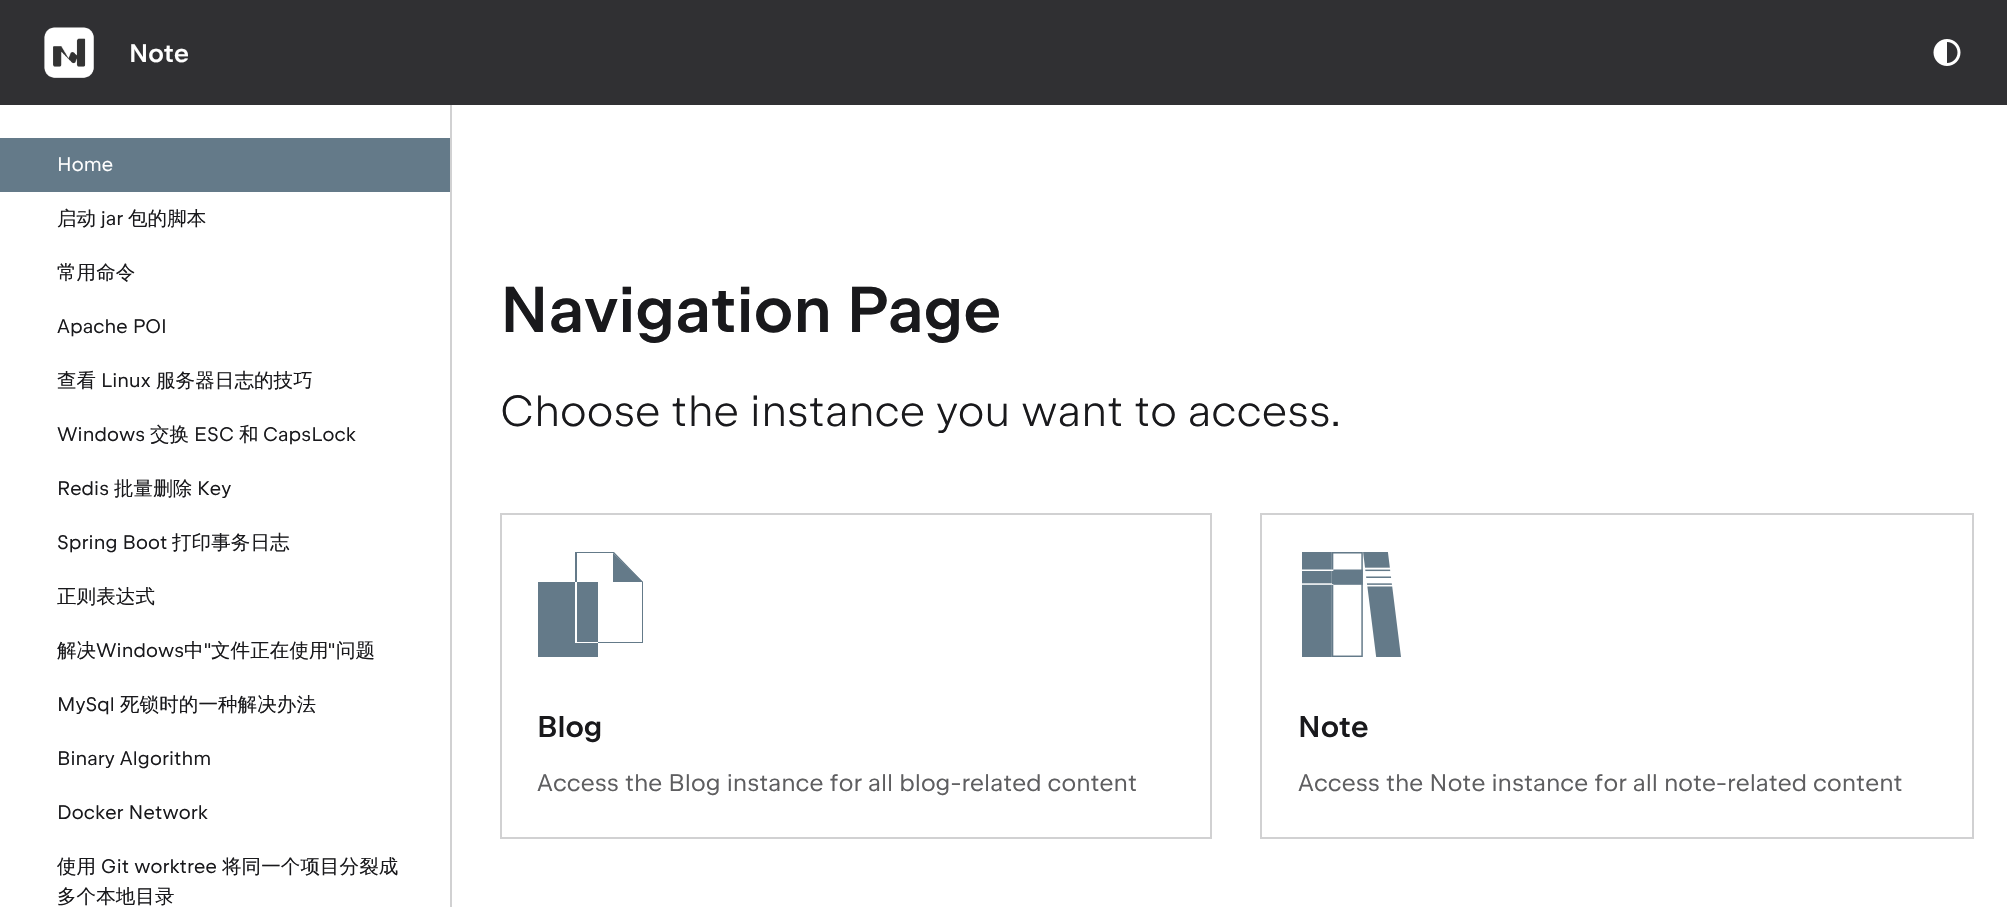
#include "include/core/SkBlurTypes.h"
#include "include/core/SkCanvas.h"
#include "include/core/SkData.h"
#include "include/core/SkFont.h"
#include "include/core/SkFontMgr.h"
#include "include/core/SkImage.h"
#include "include/core/SkMaskFilter.h"
#include "include/core/SkPaint.h"
#include "include/core/SkPathBuilder.h"
#include "include/core/SkTextBlob.h"
#include "include/effects/SkDashPathEffect.h"
#include "include/effects/SkGradientShader.h"
#include "include/utils/SkParsePath.h"

extern sk_sp<SkFontMgr> fontMgr;

void draw(SkCanvas* canvas) {
  SkPaint p;
  p.setAntiAlias(true);
  auto spacedText = [&](const char* s, float x, float y, const SkFont& font, const SkPaint& ink, float letter, float word) {
    std::vector<SkGlyphID> glyphs(font.countText(s, strlen(s), SkTextEncoding::kUTF8));
    std::vector<float> xs(glyphs.size());
    font.textToGlyphs(s, strlen(s), SkTextEncoding::kUTF8, glyphs);
    font.getXPos(glyphs, xs, x);
    float extra = 0;
    for (size_t i = 0; i < glyphs.size(); i++) {
      xs[i] += extra;
      extra += letter + word * (glyphs[i] == font.unicharToGlyph(' '));
    }
    canvas->drawTextBlob(SkTextBlob::MakeFromPosHGlyphs(glyphs, xs, y, font), 0, 0, ink);
  };
  canvas->clear(SK_ColorWHITE);
  p.setColor(SkColorSetRGB(48, 48, 51));
  canvas->drawRect(SkRect::MakeLTRB(0, 0, 2007, 105), p);
  canvas->drawImageRect(SkImages::DeferredFromEncodedData(SkData::MakeFromFileName("images/1.png")), SkRect::MakeLTRB(44, 27, 94, 78), SkSamplingOptions());
  canvas->drawImageRect(SkImages::DeferredFromEncodedData(SkData::MakeFromFileName("images/2.png")), SkRect::MakeLTRB(1933, 39, 1961, 66), SkSamplingOptions());
  p.setColor(SkColorSetRGB(209, 209, 210));
  canvas->drawRect(SkRect::MakeLTRB(450, 105, 452, 907), p);
  p.setColor(SkColorSetRGB(100, 122, 137));
  canvas->drawRect(SkRect::MakeLTRB(0, 138, 450, 192), p);
  p.setStyle(SkPaint::kStroke_Style);
  p.setStrokeWidth(2);
  p.setColor(SkColorSetRGB(209, 209, 210));
  canvas->drawRect(SkRect::MakeLTRB(501, 514, 1211, 838), p);
  p.setStyle(SkPaint::kFill_Style);
  p.setColor(SkColorSetRGB(100, 122, 137));
  canvas->drawRect(SkRect::MakeLTRB(577, 582, 598, 642), p);
  canvas->drawPath(SkPathBuilder().moveTo(575, 643).lineTo(575, 582).lineTo(538, 582).lineTo(538, 657).lineTo(598, 657).lineTo(598, 643).close().moveTo(643, 582).lineTo(613, 582).lineTo(613, 553).close().detach(), p);
  canvas->drawPath(SkPathBuilder().moveTo(575, 552).lineTo(614, 552).lineTo(643, 582).lineTo(643, 643).lineTo(598, 643).lineTo(598, 642).lineTo(642, 642).lineTo(642, 582).lineTo(613, 553).lineTo(577, 553).lineTo(577, 582).lineTo(575, 582).close().detach(), p);
  p.setStyle(SkPaint::kStroke_Style);
  p.setColor(SkColorSetRGB(209, 209, 210));
  canvas->drawRect(SkRect::MakeLTRB(1261, 514, 1973, 838), p);
  canvas->drawImageRect(SkImages::DeferredFromEncodedData(SkData::MakeFromFileName("images/3.png")), SkRect::MakeLTRB(1302, 552, 1401, 657), SkSamplingOptions());
  SkFont font1(fontMgr->matchFamilyStyle("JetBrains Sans", SkFontStyle(500, SkFontStyle::kNormal_Width, SkFontStyle::kUpright_Slant)), 25.5f);
  font1.setSubpixel(true);
  p.setStyle(SkPaint::kFill_Style);
  p.setColor(SK_ColorWHITE);
  canvas->drawString("Note", 129, 62, font1, p);
  SkFont font2(fontMgr->matchFamilyStyle("JetBrains Sans", SkFontStyle::Normal()), 19.5f);
  font2.setSubpixel(true);
  spacedText("Home", 57, 171, font2, p, 0.1f, 0);
  SkFont font3(fontMgr->matchFamilyStyle("WenQuanYi Zen Hei", SkFontStyle(500, SkFontStyle::kNormal_Width, SkFontStyle::kUpright_Slant)), 19.5f);
  font3.setSubpixel(true);
  p.setColor(SkColorSetRGB(25, 25, 28));
  spacedText("启动", 57, 225, font3, p, 0.1f, 0);
  spacedText("jar", 101, 225, font2, p, 0.1f, 0);
  spacedText("包的脚本", 128, 225, font3, p, 0.1f, 0);
  spacedText("常用命令", 57, 279, font3, p, 0.1f, 0);
  spacedText("Apache POI", 57, 333, font2, p, 0.1f, 0);
  spacedText("查看", 57, 387, font3, p, 0.1f, 0);
  spacedText("Linux", 101, 387, font2, p, 0.1f, 0);
  spacedText("服务器日志的技巧", 156, 387, font3, p, 0.1f, 0);
  spacedText("Windows", 57, 441, font2, p, 0.1f, 0);
  spacedText("交换", 150, 441, font3, p, 0.1f, 0);
  spacedText("ESC", 194, 441, font2, p, 0.1f, 0);
  spacedText("和", 239, 441, font3, p, 0.1f, 0);
  spacedText("CapsLock", 263, 441, font2, p, 0.1f, 0);
  spacedText("Redis", 57, 495, font2, p, 0.1f, 0);
  spacedText("批量删除", 114, 495, font3, p, 0.1f, 0);
  spacedText("Key", 197, 495, font2, p, 0.1f, 0);
  spacedText("Spring Boot", 57, 549, font2, p, 0.1f, 0);
  spacedText("打印事务日志", 172, 549, font3, p, 0.1f, 0);
  spacedText("正则表达式", 57, 603, font3, p, 0.1f, 0);
  spacedText("解决", 57, 657, font3, p, 0.1f, 0);
  spacedText("Windows", 96, 657, font2, p, 0.1f, 0);
  spacedText("中", 184, 657, font3, p, 0.1f, 0);
  spacedText("\"", 204, 657, font2, p, 0.1f, 0);
  spacedText("文件正在使用", 211, 657, font3, p, 0.1f, 0);
  spacedText("\"", 328, 657, font2, p, 0.1f, 0);
  spacedText("问题", 336, 657, font3, p, 0.1f, 0);
  spacedText("MySql", 57, 711, font2, p, 0.1f, 0);
  spacedText("死锁时的一种解决办法", 120, 711, font3, p, 0.1f, 0);
  spacedText("Binary Algorithm", 57, 765, font2, p, 0.1f, 0);
  spacedText("Docker Network", 57, 819, font2, p, 0.1f, 0);
  spacedText("使用", 57, 873, font3, p, 0.1f, 0);
  spacedText("Git worktree", 101, 873, font2, p, 0.1f, 0);
  spacedText("将同一个项目分裂成", 222, 873, font3, p, 0.1f, 0);
  spacedText("多个本地目录", 57, 903, font3, p, 0.1f, 0);
  SkFont font4(fontMgr->matchFamilyStyle("JetBrains Sans", SkFontStyle(500, SkFontStyle::kNormal_Width, SkFontStyle::kUpright_Slant)), 64.5f);
  font4.setSubpixel(true);
  canvas->drawString("Navigation Page", 500, 332, font4, p);
  SkFont font5(fontMgr->matchFamilyStyle("JetBrains Sans", SkFontStyle(300, SkFontStyle::kNormal_Width, SkFontStyle::kUpright_Slant)), 43.5f);
  font5.setSubpixel(true);
  spacedText("Choose the instance you want to access.", 500, 426, font5, p, 0.05f, 0);
  SkFont font6(fontMgr->matchFamilyStyle("JetBrains Sans", SkFontStyle(500, SkFontStyle::kNormal_Width, SkFontStyle::kUpright_Slant)), 30);
  font6.setSubpixel(true);
  canvas->drawString("Blog", 537, 737, font6, p);
  SkFont font7(fontMgr->matchFamilyStyle("JetBrains Sans", SkFontStyle::Normal()), 24);
  font7.setSubpixel(true);
  p.setColor(SkColorSetRGB(94, 94, 96));
  spacedText("Access the Blog instance for all blog-related content", 537, 791, font7, p, 0.05f, 0);
  p.setColor(SkColorSetRGB(25, 25, 28));
  canvas->drawString("Note", 1298, 737, font6, p);
  p.setColor(SkColorSetRGB(94, 94, 96));
  spacedText("Access the Note instance for all note-related content", 1298, 791, font7, p, 0.05f, 0);
}
